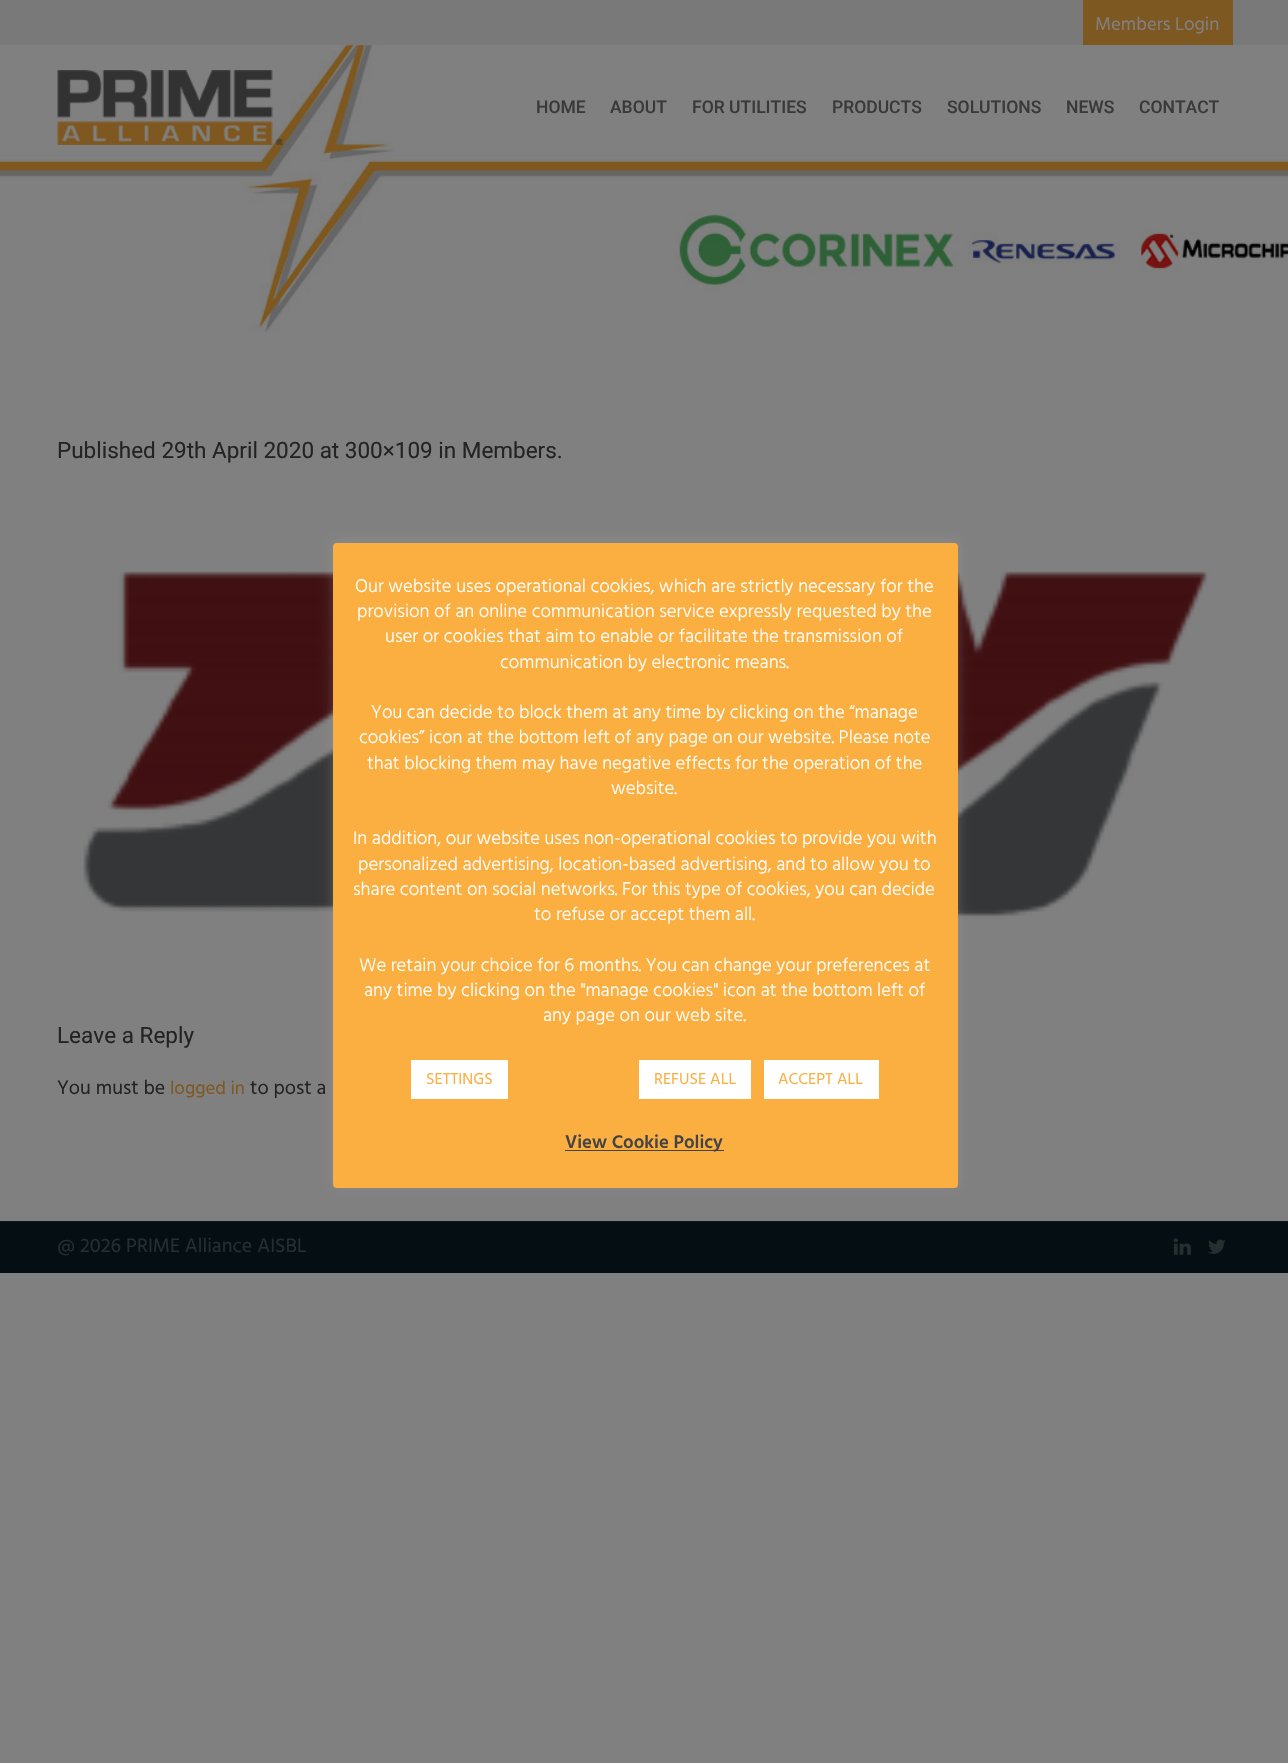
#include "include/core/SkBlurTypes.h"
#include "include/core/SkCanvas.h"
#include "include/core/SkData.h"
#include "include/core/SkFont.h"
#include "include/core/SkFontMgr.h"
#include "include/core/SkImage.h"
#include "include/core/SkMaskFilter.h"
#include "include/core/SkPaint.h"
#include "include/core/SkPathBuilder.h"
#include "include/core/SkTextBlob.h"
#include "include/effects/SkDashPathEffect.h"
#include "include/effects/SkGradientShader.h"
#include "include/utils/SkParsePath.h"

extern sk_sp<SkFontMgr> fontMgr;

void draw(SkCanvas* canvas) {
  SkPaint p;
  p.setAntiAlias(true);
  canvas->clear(SkColorSetRGB(128, 128, 128));
  p.setColor(SkColorSetRGB(121, 121, 121));
  canvas->drawRect(SkRect::MakeLTRB(0, 0, 1288, 45), p);
  p.setColor(SkColorSetRGB(126, 88, 33));
  canvas->drawRect(SkRect::MakeLTRB(1083, 0, 1233, 45), p);
  canvas->drawImageRect(SkImages::DeferredFromEncodedData(SkData::MakeFromFileName("images/2.png")), SkRect::MakeLTRB(0, 45, 1288, 333), SkSamplingOptions());
  p.setColor(SkColorSetARGB(51, 128, 128, 128));
  canvas->drawRect(SkRect::MakeLTRB(345, 45, 372, 46), p);
  canvas->drawImageRect(SkImages::DeferredFromEncodedData(SkData::MakeFromFileName("images/1.png")), SkRect::MakeLTRB(57, 70, 283, 145), SkSamplingOptions());
  canvas->drawImageRect(SkImages::DeferredFromEncodedData(SkData::MakeFromFileName("images/3.png")), SkRect::MakeLTRB(83, 571, 1209, 919), SkSamplingOptions());
  p.setColor(SkColorSetRGB(5, 15, 19));
  canvas->drawRect(SkRect::MakeLTRB(0, 1222, 1288, 1273), p);
  p.setColor(SkColorSetRGB(14, 24, 27));
  canvas->drawRect(SkRect::MakeLTRB(0, 1221, 1288, 1222), p);
  canvas->drawImageRect(SkImages::DeferredFromEncodedData(SkData::MakeFromFileName("images/4.png")), SkRect::MakeLTRB(1173, 1238, 1191, 1255), SkSamplingOptions());
  canvas->drawImageRect(SkImages::DeferredFromEncodedData(SkData::MakeFromFileName("images/5.png")), SkRect::MakeLTRB(1208, 1239, 1226, 1254), SkSamplingOptions());
  p.setColor(SkColorSetARGB(77, 172, 171, 171));
  p.setMaskFilter(SkMaskFilter::MakeBlur(kNormal_SkBlurStyle, 6));
  canvas->drawRoundRect(SkRect::MakeLTRB(333, 541, 958, 1186), 4, 4, p);
  p.setMaskFilter(nullptr);
  p.setColor(SkColorSetRGB(251, 175, 65));
  canvas->drawRoundRect(SkRect::MakeLTRB(333, 543, 958, 1188), 4, 4, p);
  p.setColor(SK_ColorWHITE);
  canvas->drawRect(SkRect::MakeLTRB(411, 1060, 508, 1099), p);
  canvas->drawRect(SkRect::MakeLTRB(639, 1060, 751, 1099), p);
  canvas->drawRect(SkRect::MakeLTRB(764, 1060, 879, 1099), p);
  p.setColor(SkColorSetRGB(68, 68, 68));
  canvas->drawRect(SkRect::MakeLTRB(565, 1150, 724, 1151), p);
  SkFont font1(fontMgr->matchFamilyStyle("Hind", SkFontStyle::Normal()), 18.75f);
  font1.setSubpixel(true);
  p.setColor(SkColorSetRGB(128, 128, 128));
  canvas->drawString("Members Login", 1095, 30, font1, p);
  SkFont font2(fontMgr->matchFamilyStyle("Roboto", SkFontStyle(500, SkFontStyle::kNormal_Width, SkFontStyle::kUpright_Slant)), 17.5f);
  font2.setSubpixel(true);
  p.setColor(SkColorSetRGB(57, 57, 57));
  canvas->drawString("HOME", 536, 113, font2, p);
  canvas->drawString("ABOUT", 610, 113, font2, p);
  canvas->drawString("FOR UTILITIES", 692, 113, font2, p);
  canvas->drawString("PRODUCTS", 832, 113, font2, p);
  canvas->drawString("SOLUTIONS", 947, 113, font2, p);
  canvas->drawString("NEWS", 1066, 113, font2, p);
  canvas->drawString("CONTACT", 1139, 113, font2, p);
  SkFont font3(fontMgr->matchFamilyStyle("Roboto", SkFontStyle::Normal()), 22.5f);
  font3.setSubpixel(true);
  p.setColor(SkColorSetRGB(35, 35, 35));
  canvas->drawString("Published 29th April 2020 at 300×109 in Members.", 57, 458, font3, p);
  canvas->drawString("Leave a Reply", 57, 1043, font3, p);
  SkFont font4(fontMgr->matchFamilyStyle("Hind", SkFontStyle::Normal()), 20);
  font4.setSubpixel(true);
  canvas->drawString("You must be", 57, 1094, font4, p);
  p.setColor(SkColorSetRGB(126, 88, 33));
  canvas->drawString("logged in", 170, 1094, font1, p);
  p.setColor(SkColorSetRGB(35, 35, 35));
  canvas->drawString("to post a", 250, 1094, font4, p);
  p.setColor(SkColorSetRGB(38, 46, 49));
  canvas->drawString("@ 2026 PRIME Alliance AISBL", 57, 1252, font4, p);
  SkFont font5(fontMgr->matchFamilyStyle("Hind", SkFontStyle(300, SkFontStyle::kNormal_Width, SkFontStyle::kUpright_Slant)), 18.75f);
  font5.setSubpixel(true);
  p.setColor(SK_ColorWHITE);
  canvas->drawString("Our website uses operational cookies, which are strictly necessary for the", 355, 592, font5, p);
  canvas->drawString("provision of an online communication service expressly requested by the", 357, 617, font5, p);
  canvas->drawString("user or cookies that aim to enable or facilitate the transmission of", 385, 642, font5, p);
  canvas->drawString("communication by electronic means.", 500, 668, font5, p);
  canvas->drawString("You can decide to block them at any time by clicking on the “manage", 371, 718, font5, p);
  canvas->drawString("cookies” icon at the bottom left of any page on our website. Please note", 359, 743, font5, p);
  canvas->drawString("that blocking them may have negative effects for the operation of the", 367, 769, font5, p);
  canvas->drawString("website.", 611, 794, font5, p);
  canvas->drawString("In addition, our website uses non-operational cookies to provide you with", 353, 844, font5, p);
  canvas->drawString("personalized advertising, location-based advertising, and to allow you to", 358, 870, font5, p);
  canvas->drawString("share content on social networks. For this type of cookies, you can decide", 353, 895, font5, p);
  canvas->drawString("to refuse or accept them all.", 534, 920, font5, p);
  canvas->drawString("We retain your choice for 6 months. You can change your preferences at", 359, 971, font5, p);
  canvas->drawString("any time by clicking on the \"manage cookies\" icon at the bottom left of", 364, 996, font5, p);
  canvas->drawString("any page on our web site.", 543, 1021, font5, p);
  SkFont font6(fontMgr->matchFamilyStyle("Hind", SkFontStyle::Normal()), 16.25f);
  font6.setSubpixel(true);
  p.setColor(SkColorSetRGB(251, 175, 65));
  canvas->drawString("SETTINGS", 426, 1084, font6, p);
  canvas->drawString("REFUSE ALL", 654, 1084, font6, p);
  canvas->drawString("ACCEPT ALL", 778, 1084, font6, p);
  SkFont font7(fontMgr->matchFamilyStyle("Hind", SkFontStyle(600, SkFontStyle::kNormal_Width, SkFontStyle::kUpright_Slant)), 18.75f);
  font7.setSubpixel(true);
  p.setColor(SkColorSetRGB(68, 68, 68));
  canvas->drawString("View Cookie Policy", 565, 1148, font7, p);
}
